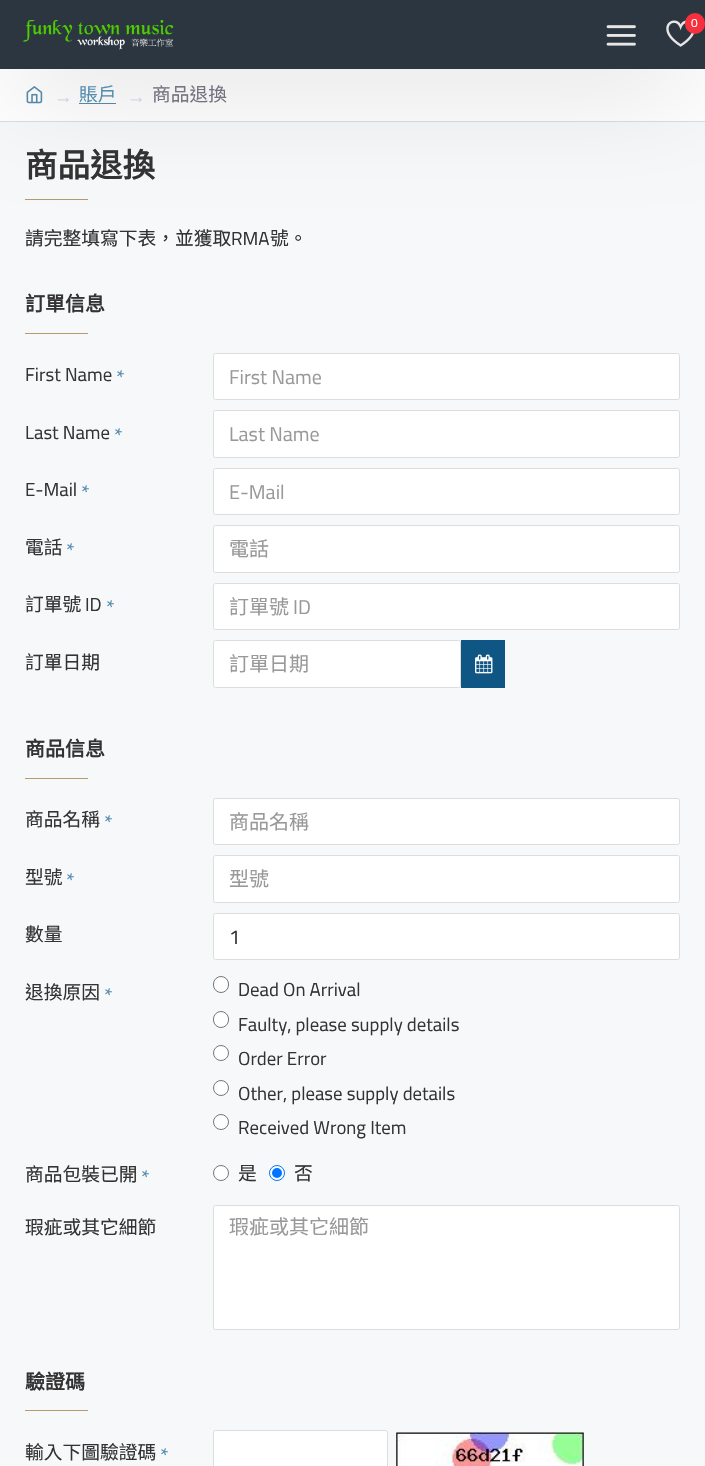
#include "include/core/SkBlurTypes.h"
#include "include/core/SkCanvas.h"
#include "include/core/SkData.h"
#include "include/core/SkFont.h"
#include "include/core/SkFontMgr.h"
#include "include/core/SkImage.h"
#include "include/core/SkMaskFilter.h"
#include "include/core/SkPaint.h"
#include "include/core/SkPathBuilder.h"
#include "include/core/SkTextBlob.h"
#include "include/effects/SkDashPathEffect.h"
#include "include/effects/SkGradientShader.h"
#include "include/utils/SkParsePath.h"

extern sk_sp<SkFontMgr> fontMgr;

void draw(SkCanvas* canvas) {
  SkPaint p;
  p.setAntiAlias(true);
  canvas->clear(SkColorSetRGB(247, 248, 250));
  p.setColor(SK_ColorWHITE);
  canvas->drawRect(SkRect::MakeLTRB(0, 69, 705, 121), p);
  p.setColor(SkColorSetRGB(221, 221, 221));
  canvas->drawRect(SkRect::MakeLTRB(0, 121, 705, 122), p);
  canvas->drawImageRect(SkImages::DeferredFromEncodedData(SkData::MakeFromFileName("images/4.png")), SkRect::MakeLTRB(26, 86, 43, 104), SkSamplingOptions());
  p.setColor(SkColorSetRGB(86, 142, 175));
  canvas->drawRect(SkRect::MakeLTRB(79, 103, 116, 104), p);
  p.setColor(SkColorSetRGB(181, 155, 110));
  canvas->drawRect(SkRect::MakeLTRB(25, 199, 88, 200), p);
  p.setColor(SkColorSetARGB(51, 0, 0, 0));
  p.setMaskFilter(SkMaskFilter::MakeBlur(kNormal_SkBlurStyle, 56));
  canvas->drawRect(SkRect::MakeLTRB(13, 31, 693, 75), p);
  p.setMaskFilter(nullptr);
  p.setColor(SkColorSetRGB(44, 54, 64));
  canvas->drawRect(SkRect::MakeLTRB(0, 0, 705, 69), p);
  canvas->drawImageRect(SkImages::DeferredFromEncodedData(SkData::MakeFromFileName("images/1.png")), SkRect::MakeLTRB(22, 20, 174, 50), SkSamplingOptions());
  canvas->drawImageRect(SkImages::DeferredFromEncodedData(SkData::MakeFromFileName("images/2.png")), SkRect::MakeLTRB(666, 20, 695, 47), SkSamplingOptions());
  p.setColor(SkColorSetRGB(248, 48, 61));
  canvas->drawRoundRect(SkRect::MakeLTRB(685, 13, 705, 34), 10, 10, p);
  canvas->drawImageRect(SkImages::DeferredFromEncodedData(SkData::MakeFromFileName("images/3.png")), SkRect::MakeLTRB(606, 25, 636, 46), SkSamplingOptions());
  p.setColor(SkColorSetRGB(181, 155, 110));
  canvas->drawRect(SkRect::MakeLTRB(25, 333, 88, 334), p);
  p.setColor(SK_ColorWHITE);
  canvas->drawRoundRect(SkRect::MakeLTRB(213.5f, 353.5f, 679.5f, 399.5f), 2, 2, p);
  p.setStyle(SkPaint::kStroke_Style);
  p.setStrokeWidth(1);
  p.setColor(SkColorSetRGB(221, 221, 221));
  canvas->drawRoundRect(SkRect::MakeLTRB(213.5f, 353.5f, 679.5f, 399.5f), 2, 2, p);
  p.setStyle(SkPaint::kFill_Style);
  p.setColor(SK_ColorWHITE);
  canvas->drawRoundRect(SkRect::MakeLTRB(213.5f, 410.5f, 679.5f, 457.5f), 2, 2, p);
  p.setStyle(SkPaint::kStroke_Style);
  p.setColor(SkColorSetRGB(221, 221, 221));
  canvas->drawRoundRect(SkRect::MakeLTRB(213.5f, 410.5f, 679.5f, 457.5f), 2, 2, p);
  p.setStyle(SkPaint::kFill_Style);
  p.setColor(SK_ColorWHITE);
  canvas->drawRoundRect(SkRect::MakeLTRB(213.5f, 468.5f, 679.5f, 514.5f), 2, 2, p);
  p.setStyle(SkPaint::kStroke_Style);
  p.setColor(SkColorSetRGB(221, 221, 221));
  canvas->drawRoundRect(SkRect::MakeLTRB(213.5f, 468.5f, 679.5f, 514.5f), 2, 2, p);
  p.setStyle(SkPaint::kFill_Style);
  p.setColor(SK_ColorWHITE);
  canvas->drawRoundRect(SkRect::MakeLTRB(213.5f, 525.5f, 679.5f, 572.5f), 2, 2, p);
  p.setStyle(SkPaint::kStroke_Style);
  p.setColor(SkColorSetRGB(221, 221, 221));
  canvas->drawRoundRect(SkRect::MakeLTRB(213.5f, 525.5f, 679.5f, 572.5f), 2, 2, p);
  p.setStyle(SkPaint::kFill_Style);
  p.setColor(SK_ColorWHITE);
  canvas->drawRoundRect(SkRect::MakeLTRB(213.5f, 583.5f, 679.5f, 629.5f), 2, 2, p);
  p.setStyle(SkPaint::kStroke_Style);
  p.setColor(SkColorSetRGB(221, 221, 221));
  canvas->drawRoundRect(SkRect::MakeLTRB(213.5f, 583.5f, 679.5f, 629.5f), 2, 2, p);
  p.setStyle(SkPaint::kFill_Style);
  p.setColor(SK_ColorWHITE);
  canvas->drawRoundRect(SkRect::MakeLTRB(213.5f, 640.5f, 460.5f, 687.5f), 2, 2, p);
  p.setStyle(SkPaint::kStroke_Style);
  p.setColor(SkColorSetRGB(221, 221, 221));
  canvas->drawRoundRect(SkRect::MakeLTRB(213.5f, 640.5f, 460.5f, 687.5f), 2, 2, p);
  p.setStyle(SkPaint::kFill_Style);
  p.setColor(SkColorSetRGB(15, 86, 132));
  canvas->drawRect(SkRect::MakeLTRB(461, 640, 505, 688), p);
  canvas->drawImageRect(SkImages::DeferredFromEncodedData(SkData::MakeFromFileName("images/5.png")), SkRect::MakeLTRB(475, 654, 493, 674), SkSamplingOptions());
  p.setColor(SkColorSetRGB(181, 155, 110));
  canvas->drawRect(SkRect::MakeLTRB(25, 778, 88, 779), p);
  p.setColor(SK_ColorWHITE);
  canvas->drawRoundRect(SkRect::MakeLTRB(213.5f, 798.5f, 679.5f, 844.5f), 2, 2, p);
  p.setStyle(SkPaint::kStroke_Style);
  p.setColor(SkColorSetRGB(221, 221, 221));
  canvas->drawRoundRect(SkRect::MakeLTRB(213.5f, 798.5f, 679.5f, 844.5f), 2, 2, p);
  p.setStyle(SkPaint::kFill_Style);
  p.setColor(SK_ColorWHITE);
  canvas->drawRoundRect(SkRect::MakeLTRB(213.5f, 855.5f, 679.5f, 902.5f), 2, 2, p);
  p.setStyle(SkPaint::kStroke_Style);
  p.setColor(SkColorSetRGB(221, 221, 221));
  canvas->drawRoundRect(SkRect::MakeLTRB(213.5f, 855.5f, 679.5f, 902.5f), 2, 2, p);
  p.setStyle(SkPaint::kFill_Style);
  p.setColor(SK_ColorWHITE);
  canvas->drawRoundRect(SkRect::MakeLTRB(213.5f, 913.5f, 679.5f, 959.5f), 2, 2, p);
  p.setStyle(SkPaint::kStroke_Style);
  p.setColor(SkColorSetRGB(221, 221, 221));
  canvas->drawRoundRect(SkRect::MakeLTRB(213.5f, 913.5f, 679.5f, 959.5f), 2, 2, p);
  p.setStyle(SkPaint::kFill_Style);
  p.setColor(SK_ColorWHITE);
  canvas->drawRoundRect(SkRect::MakeLTRB(213.5f, 976.5f, 228.5f, 992.5f), 7.5f, 7.5f, p);
  p.setStyle(SkPaint::kStroke_Style);
  p.setColor(SkColorSetRGB(118, 118, 118));
  canvas->drawRoundRect(SkRect::MakeLTRB(213.5f, 976.5f, 228.5f, 992.5f), 7.5f, 7.5f, p);
  p.setStyle(SkPaint::kFill_Style);
  p.setColor(SK_ColorWHITE);
  canvas->drawRoundRect(SkRect::MakeLTRB(213.5f, 1011.5f, 228.5f, 1027.5f), 7.5f, 7.5f, p);
  p.setStyle(SkPaint::kStroke_Style);
  p.setColor(SkColorSetRGB(118, 118, 118));
  canvas->drawRoundRect(SkRect::MakeLTRB(213.5f, 1011.5f, 228.5f, 1027.5f), 7.5f, 7.5f, p);
  p.setStyle(SkPaint::kFill_Style);
  p.setColor(SK_ColorWHITE);
  canvas->drawCircle(221, 1053, 7.5f, p);
  p.setStyle(SkPaint::kStroke_Style);
  p.setColor(SkColorSetRGB(118, 118, 118));
  canvas->drawCircle(221, 1053, 7.5f, p);
  p.setStyle(SkPaint::kFill_Style);
  p.setColor(SK_ColorWHITE);
  canvas->drawCircle(221, 1088, 7.5f, p);
  p.setStyle(SkPaint::kStroke_Style);
  p.setColor(SkColorSetRGB(118, 118, 118));
  canvas->drawCircle(221, 1088, 7.5f, p);
  p.setStyle(SkPaint::kFill_Style);
  p.setColor(SK_ColorWHITE);
  canvas->drawCircle(221, 1122, 7.5f, p);
  p.setStyle(SkPaint::kStroke_Style);
  p.setColor(SkColorSetRGB(118, 118, 118));
  canvas->drawCircle(221, 1122, 7.5f, p);
  p.setStyle(SkPaint::kFill_Style);
  p.setColor(SK_ColorWHITE);
  canvas->drawCircle(221, 1173, 7.5f, p);
  p.setStyle(SkPaint::kStroke_Style);
  p.setColor(SkColorSetRGB(118, 118, 118));
  canvas->drawCircle(221, 1173, 7.5f, p);
  p.setStyle(SkPaint::kFill_Style);
  p.setColor(SK_ColorWHITE);
  canvas->drawCircle(277, 1173, 7.5f, p);
  p.setStyle(SkPaint::kStroke_Style);
  p.setColor(SkColorSetRGB(0, 117, 255));
  canvas->drawCircle(277, 1173, 7.5f, p);
  p.setStyle(SkPaint::kFill_Style);
  canvas->drawCircle(277, 1173, 5, p);
  p.setColor(SK_ColorWHITE);
  canvas->drawRoundRect(SkRect::MakeLTRB(213.5f, 1205.5f, 679.5f, 1329.5f), 2, 2, p);
  p.setStyle(SkPaint::kStroke_Style);
  p.setColor(SkColorSetRGB(221, 221, 221));
  canvas->drawRoundRect(SkRect::MakeLTRB(213.5f, 1205.5f, 679.5f, 1329.5f), 2, 2, p);
  p.setStyle(SkPaint::kFill_Style);
  p.setColor(SkColorSetRGB(181, 155, 110));
  canvas->drawRect(SkRect::MakeLTRB(25, 1410, 88, 1411), p);
  p.setColor(SK_ColorWHITE);
  canvas->drawRoundRect(SkRect::MakeLTRB(213.5f, 1430.5f, 387.5f, 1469.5f), 2, 2, p);
  p.setStyle(SkPaint::kStroke_Style);
  p.setColor(SkColorSetRGB(221, 221, 221));
  canvas->drawRoundRect(SkRect::MakeLTRB(213.5f, 1430.5f, 387.5f, 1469.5f), 2, 2, p);
  canvas->drawImageRect(SkImages::DeferredFromEncodedData(SkData::MakeFromFileName("images/6.png")), SkRect::MakeLTRB(396, 1432, 584, 1466), SkSamplingOptions());
  SkFont font1(fontMgr->matchFamilyStyle("Titillium Web", SkFontStyle::Normal()), 12);
  font1.setSubpixel(true);
  p.setStyle(SkPaint::kFill_Style);
  p.setColor(SK_ColorWHITE);
  canvas->drawString("0", 691, 27, font1, p);
  SkFont font2(fontMgr->matchFamilyStyle("Liberation Serif", SkFontStyle::Normal()), 18.75f);
  font2.setSubpixel(true);
  p.setColor(SkColorSetRGB(203, 209, 227));
  canvas->drawString("→", 54, 103, font2, p);
  SkFont font3(fontMgr->matchFamilyStyle("Noto Sans CJK TC", SkFontStyle::Normal()), 18.75f);
  font3.setSubpixel(true);
  p.setColor(SkColorSetRGB(86, 142, 175));
  canvas->drawString("賬戶", 79, 101, font3, p);
  p.setColor(SkColorSetRGB(203, 209, 227));
  canvas->drawString("→", 127, 103, font2, p);
  p.setColor(SkColorSetRGB(115, 115, 129));
  canvas->drawString("商品退換", 152, 101, font3, p);
  SkFont font4(fontMgr->matchFamilyStyle("Noto Sans CJK TC", SkFontStyle::Bold()), 32.5f);
  font4.setSubpixel(true);
  p.setColor(SkColorSetRGB(51, 51, 51));
  canvas->drawString("商品退換", 25, 177, font4, p);
  canvas->drawString("請完整填寫下表，並獲取", 25, 245, font3, p);
  SkFont font5(fontMgr->matchFamilyStyle("Titillium Web", SkFontStyle::Normal()), 18.75f);
  font5.setSubpixel(true);
  canvas->drawString("RMA", 231, 245, font5, p);
  canvas->drawString("號。", 270, 245, font3, p);
  SkFont font6(fontMgr->matchFamilyStyle("Noto Sans CJK TC", SkFontStyle::Bold()), 20);
  font6.setSubpixel(true);
  canvas->drawString("訂單信息", 25, 311, font6, p);
  canvas->drawString("First Name", 25, 381, font5, p);
  SkFont font7(fontMgr->matchFamilyStyle("Titillium Web", SkFontStyle::Normal()), 21);
  font7.setSubpixel(true);
  p.setColor(SkColorSetRGB(86, 142, 175));
  canvas->drawString("*", 116, 385, font7, p);
  SkFont font8(fontMgr->matchFamilyStyle("Titillium Web", SkFontStyle::Normal()), 20);
  font8.setSubpixel(true);
  p.setColor(SkColorSetRGB(153, 153, 153));
  canvas->drawString("First Name", 229, 384, font8, p);
  p.setColor(SkColorSetRGB(51, 51, 51));
  canvas->drawString("Last Name", 25, 439, font5, p);
  p.setColor(SkColorSetRGB(86, 142, 175));
  canvas->drawString("*", 114, 443, font7, p);
  p.setColor(SkColorSetRGB(153, 153, 153));
  canvas->drawString("Last Name", 229, 441, font8, p);
  p.setColor(SkColorSetRGB(51, 51, 51));
  canvas->drawString("E-Mail", 25, 496, font5, p);
  p.setColor(SkColorSetRGB(86, 142, 175));
  canvas->drawString("*", 81, 500, font7, p);
  p.setColor(SkColorSetRGB(153, 153, 153));
  canvas->drawString("E-Mail", 229, 499, font8, p);
  p.setColor(SkColorSetRGB(51, 51, 51));
  canvas->drawString("電話", 25, 554, font3, p);
  p.setColor(SkColorSetRGB(86, 142, 175));
  canvas->drawString("*", 66, 558, font7, p);
  SkFont font9(fontMgr->matchFamilyStyle("Noto Sans CJK TC", SkFontStyle::Normal()), 20);
  font9.setSubpixel(true);
  p.setColor(SkColorSetRGB(153, 153, 153));
  canvas->drawString("電話", 229, 556, font9, p);
  p.setColor(SkColorSetRGB(51, 51, 51));
  canvas->drawString("訂單號", 25, 611, font3, p);
  canvas->drawString("ID", 85, 611, font5, p);
  p.setColor(SkColorSetRGB(86, 142, 175));
  canvas->drawString("*", 106, 615, font7, p);
  p.setColor(SkColorSetRGB(153, 153, 153));
  canvas->drawString("訂單號", 229, 614, font9, p);
  canvas->drawString("ID", 293, 614, font8, p);
  p.setColor(SkColorSetRGB(51, 51, 51));
  canvas->drawString("訂單日期", 25, 669, font3, p);
  p.setColor(SkColorSetRGB(153, 153, 153));
  canvas->drawString("訂單日期", 229, 671, font9, p);
  p.setColor(SkColorSetRGB(51, 51, 51));
  canvas->drawString("商品信息", 25, 756, font6, p);
  canvas->drawString("商品名稱", 25, 826, font3, p);
  p.setColor(SkColorSetRGB(86, 142, 175));
  canvas->drawString("*", 104, 830, font7, p);
  p.setColor(SkColorSetRGB(153, 153, 153));
  canvas->drawString("商品名稱", 229, 829, font9, p);
  p.setColor(SkColorSetRGB(51, 51, 51));
  canvas->drawString("型號", 25, 884, font3, p);
  p.setColor(SkColorSetRGB(86, 142, 175));
  canvas->drawString("*", 66, 888, font7, p);
  p.setColor(SkColorSetRGB(153, 153, 153));
  canvas->drawString("型號", 229, 886, font9, p);
  p.setColor(SkColorSetRGB(51, 51, 51));
  canvas->drawString("數量", 25, 941, font3, p);
  canvas->drawString("1", 229, 944, font8, p);
  canvas->drawString("退換原因", 25, 999, font3, p);
  p.setColor(SkColorSetRGB(86, 142, 175));
  canvas->drawString("*", 104, 1003, font7, p);
  p.setColor(SkColorSetRGB(51, 51, 51));
  canvas->drawString("Dead On Arrival", 238, 996, font5, p);
  canvas->drawString("Faulty, please supply details", 238, 1031, font5, p);
  canvas->drawString("Order Error", 238, 1065, font5, p);
  canvas->drawString("Other, please supply details", 238, 1100, font5, p);
  canvas->drawString("Received Wrong Item", 238, 1134, font5, p);
  canvas->drawString("商品包裝已開", 25, 1181, font3, p);
  p.setColor(SkColorSetRGB(86, 142, 175));
  canvas->drawString("*", 141, 1185, font7, p);
  p.setColor(SkColorSetRGB(51, 51, 51));
  canvas->drawString("是", 238, 1180, font3, p);
  canvas->drawString("否", 294, 1180, font3, p);
  canvas->drawString("瑕疵或其它細節", 25, 1234, font3, p);
  p.setColor(SkColorSetRGB(153, 153, 153));
  canvas->drawString("瑕疵或其它細節", 229, 1234, font9, p);
  p.setColor(SkColorSetRGB(51, 51, 51));
  canvas->drawString("驗證碼", 25, 1389, font6, p);
  canvas->drawString("輸入下圖驗證碼", 25, 1459, font3, p);
  p.setColor(SkColorSetRGB(86, 142, 175));
  canvas->drawString("*", 160, 1463, font7, p);
}
